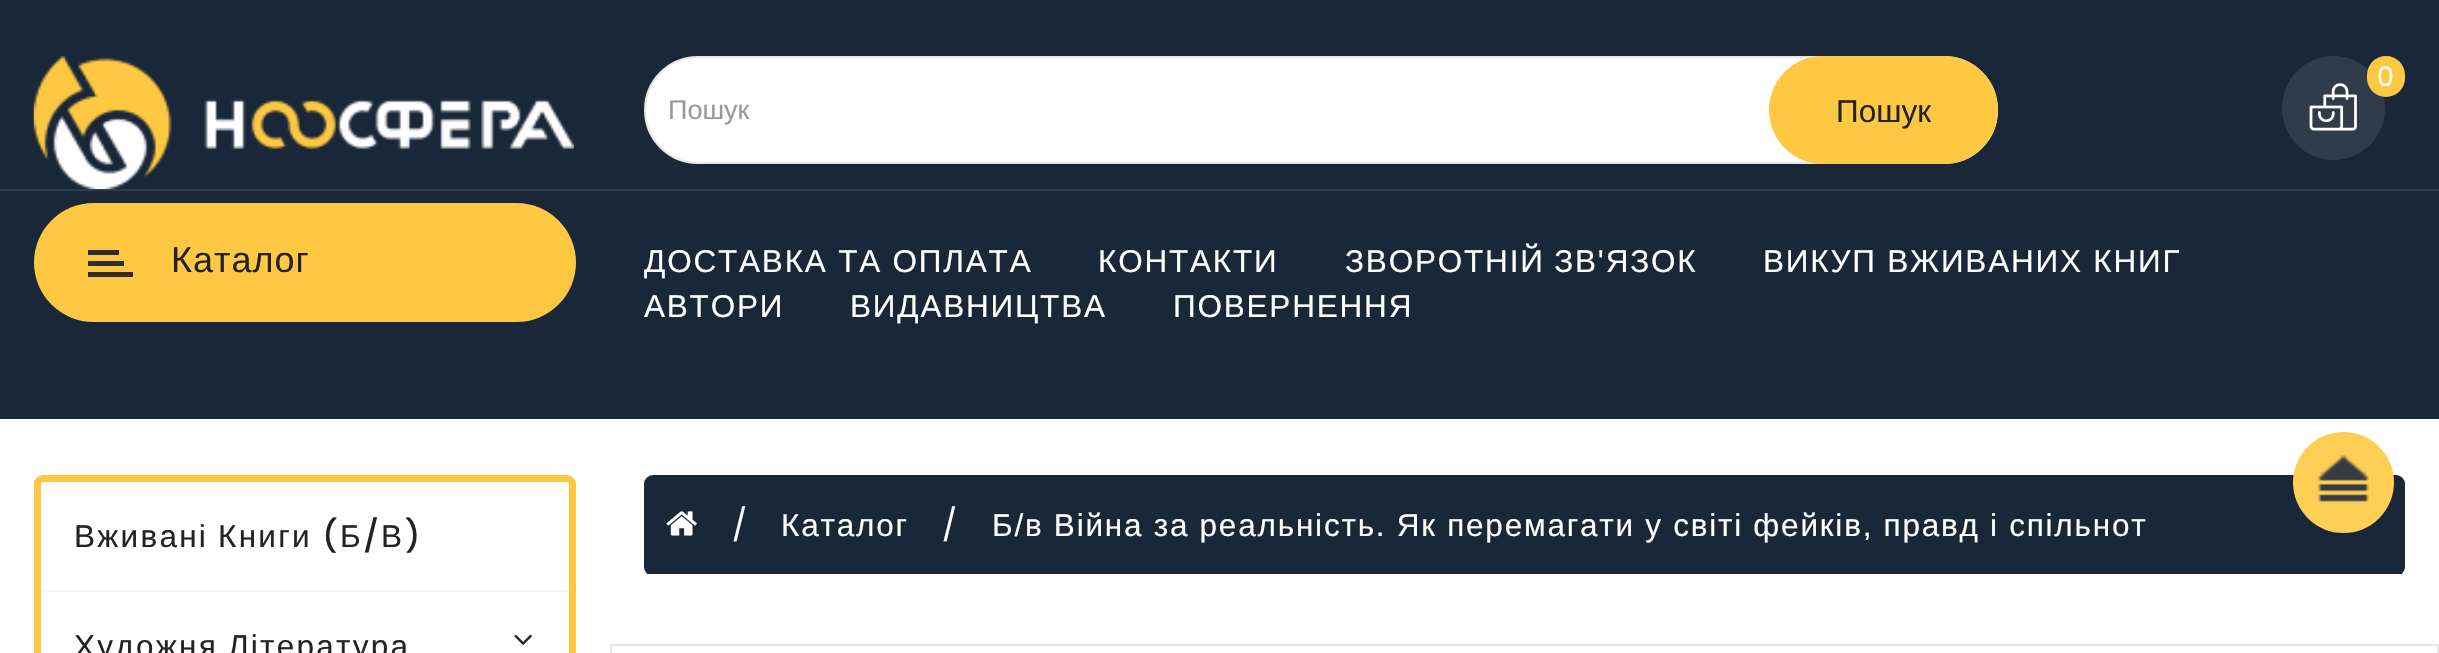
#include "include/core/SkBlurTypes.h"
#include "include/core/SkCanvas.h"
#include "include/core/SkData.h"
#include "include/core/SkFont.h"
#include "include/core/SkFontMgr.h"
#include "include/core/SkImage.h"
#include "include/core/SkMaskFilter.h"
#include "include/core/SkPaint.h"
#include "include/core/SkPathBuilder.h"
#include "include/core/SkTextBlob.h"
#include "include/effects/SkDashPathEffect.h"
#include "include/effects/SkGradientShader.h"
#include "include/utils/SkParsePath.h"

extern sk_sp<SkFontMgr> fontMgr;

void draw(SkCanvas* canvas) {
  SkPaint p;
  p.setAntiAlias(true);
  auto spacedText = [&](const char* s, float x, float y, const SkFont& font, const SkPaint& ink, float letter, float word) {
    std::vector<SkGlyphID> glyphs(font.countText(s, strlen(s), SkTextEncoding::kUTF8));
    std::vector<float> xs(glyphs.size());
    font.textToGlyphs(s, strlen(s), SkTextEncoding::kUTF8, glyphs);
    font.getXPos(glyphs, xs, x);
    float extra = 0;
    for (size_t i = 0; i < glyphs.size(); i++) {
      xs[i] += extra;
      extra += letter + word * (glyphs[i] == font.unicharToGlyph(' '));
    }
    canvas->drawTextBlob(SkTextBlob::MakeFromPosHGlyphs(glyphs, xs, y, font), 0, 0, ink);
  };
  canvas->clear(SK_ColorWHITE);
  p.setColor(SkColorSetRGB(25, 39, 57));
  canvas->drawRect(SkRect::MakeLTRB(0, 0, 2439, 419), p);
  canvas->drawImageRect(SkImages::DeferredFromEncodedData(SkData::MakeFromFileName("images/1.png")), SkRect::MakeLTRB(33, 56, 574, 189), SkSamplingOptions());
  p.setColor(SkColorSetRGB(48, 60, 76));
  canvas->drawRoundRect(SkRect::MakeLTRB(2282, 56, 2385, 160), 51.5f, 51.5f, p);
  canvas->drawImageRect(SkImages::DeferredFromEncodedData(SkData::MakeFromFileName("images/2.png")), SkRect::MakeLTRB(2309, 83, 2357, 131), SkSamplingOptions());
  p.setColor(SkColorSetRGB(255, 200, 67));
  canvas->drawRoundRect(SkRect::MakeLTRB(2367, 56, 2405, 97), 19, 19, p);
  p.setColor(SK_ColorWHITE);
  canvas->drawRoundRect(SkRect::MakeLTRB(645, 57, 1997, 163), 53, 53, p);
  p.setStyle(SkPaint::kStroke_Style);
  p.setStrokeWidth(2);
  p.setColor(SkColorSetRGB(231, 231, 231));
  canvas->drawRoundRect(SkRect::MakeLTRB(645, 57, 1997, 163), 53, 53, p);
  p.setStyle(SkPaint::kFill_Style);
  p.setColor(SkColorSetRGB(255, 200, 67));
  canvas->drawRoundRect(SkRect::MakeLTRB(1769, 56, 1998, 164), 54, 54, p);
  p.setColor(SkColorSetRGB(48, 60, 76));
  canvas->drawRect(SkRect::MakeLTRB(0, 189, 2439, 191), p);
  p.setColor(SkColorSetRGB(255, 200, 67));
  canvas->drawRoundRect(SkRect::MakeLTRB(34, 203, 576, 322), 59.5f, 59.5f, p);
  p.setColor(SkColorSetRGB(45, 45, 45));
  canvas->drawRect(SkRect::MakeLTRB(88, 250, 119, 255), p);
  canvas->drawRect(SkRect::MakeLTRB(88, 261, 124, 266), p);
  canvas->drawRect(SkRect::MakeLTRB(88, 272, 133, 277), p);
  p.setColor(SkColorSetRGB(25, 39, 57));
  canvas->drawRoundRect(SkRect::MakeLTRB(644, 475, 2405, 576), 9, 9, p);
  p.setColor(SkColorSetRGB(254, 206, 85));
  canvas->drawCircle(2343.5f, 482.5f, 50.5f, p);
  canvas->drawImageRect(SkImages::DeferredFromEncodedData(SkData::MakeFromFileName("images/3.png")), SkRect::MakeLTRB(2317, 454, 2369, 502), SkSamplingOptions());
  p.setStyle(SkPaint::kStroke_Style);
  p.setStrokeWidth(7);
  p.setColor(SkColorSetRGB(255, 200, 67));
  canvas->drawRoundRect(SkRect::MakeLTRB(37.5f, 478.5f, 572.5f, 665.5f), 5.5f, 5.5f, p);
  p.setStyle(SkPaint::kFill_Style);
  p.setColor(SkColorSetRGB(246, 245, 245));
  canvas->drawRect(SkRect::MakeLTRB(41, 590, 569, 592), p);
  canvas->drawImageRect(SkImages::DeferredFromEncodedData(SkData::MakeFromFileName("images/4.png")), SkRect::MakeLTRB(514, 634, 532, 645), SkSamplingOptions());
  p.setColor(SK_ColorWHITE);
  canvas->drawRect(SkRect::MakeLTRB(648, 574, 2401, 576), p);
  canvas->drawImageRect(SkImages::DeferredFromEncodedData(SkData::MakeFromFileName("images/5.png")), SkRect::MakeLTRB(666, 511, 697, 536), SkSamplingOptions());
  p.setStyle(SkPaint::kStroke_Style);
  p.setStrokeWidth(2);
  p.setColor(SkColorSetRGB(231, 231, 231));
  canvas->drawRect(SkRect::MakeLTRB(611, 645, 2438, 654), p);
  SkFont font1(fontMgr->matchFamilyStyle("Poppins", SkFontStyle::Normal()), 27);
  font1.setSubpixel(true);
  p.setStyle(SkPaint::kFill_Style);
  p.setColor(SK_ColorWHITE);
  spacedText("0", 2377, 86, font1, p, 1.8f, 0);
  SkFont font2(fontMgr->matchFamilyStyle("Liberation Sans", SkFontStyle::Normal()), 27);
  font2.setSubpixel(true);
  p.setColor(SkColorSetRGB(153, 153, 153));
  canvas->drawString("Пошук", 668, 119, font2, p);
  SkFont font3(fontMgr->matchFamilyStyle("Liberation Sans", SkFontStyle::Normal()), 31.5f);
  font3.setSubpixel(true);
  p.setColor(SkColorSetRGB(35, 35, 35));
  canvas->drawString("Пошук", 1836, 122, font3, p);
  SkFont font4(fontMgr->matchFamilyStyle("Liberation Sans", SkFontStyle::Normal()), 36);
  font4.setSubpixel(true);
  spacedText("Каталог", 171, 272, font4, p, 1, 0);
  p.setColor(SK_ColorWHITE);
  spacedText("ДОСТАВКА ТА ОПЛАТА", 644, 272, font3, p, 1.8f, 0);
  spacedText("КОНТАКТИ", 1098, 272, font3, p, 1.8f, 0);
  spacedText("ЗВОРОТНІЙ ЗВ'ЯЗОК", 1345, 272, font3, p, 1.8f, -1);
  spacedText("ВИКУП ВЖИВАНИХ КНИГ", 1763, 272, font3, p, 1.8f, 0);
  spacedText("АВТОРИ", 644, 317, font3, p, 1.8f, 0);
  spacedText("ВИДАВНИЦТВА", 850, 317, font3, p, 1.8f, 0);
  spacedText("ПОВЕРНЕННЯ", 1173, 317, font3, p, 1.8f, 0);
  p.setColor(SkColorSetRGB(35, 35, 35));
  spacedText("Вживані Книги", 74, 547, font3, p, 2.25f, -1);
  SkFont font5(fontMgr->matchFamilyStyle("Poppins", SkFontStyle(500, SkFontStyle::kNormal_Width, SkFontStyle::kUpright_Slant)), 31.5f);
  font5.setSubpixel(true);
  spacedText("(", 322, 547, font5, p, 2.25f, 0);
  spacedText("Б", 340, 547, font3, p, 2.25f, 0);
  spacedText("/", 363, 547, font5, p, 2.25f, 0);
  spacedText("В", 381, 547, font3, p, 2.25f, 0);
  spacedText(")", 405, 547, font5, p, 2.25f, 0);
  spacedText("Художня Література", 74, 657, font3, p, 2.25f, -1);
  SkFont font6(fontMgr->matchFamilyStyle("Poppins", SkFontStyle::Normal()), 31.5f);
  font6.setSubpixel(true);
  p.setColor(SK_ColorWHITE);
  spacedText("/", 732, 536, font6, p, 1.8f, 0);
  spacedText("Каталог", 781, 536, font3, p, 1.8f, 0);
  spacedText("/", 942, 536, font6, p, 1.8f, 0);
  spacedText("Б/в Війна за реальність. Як перемагати у світі фейків, правд і спільнот", 992, 536, font3, p, 1.8f, -0.25f);
}
